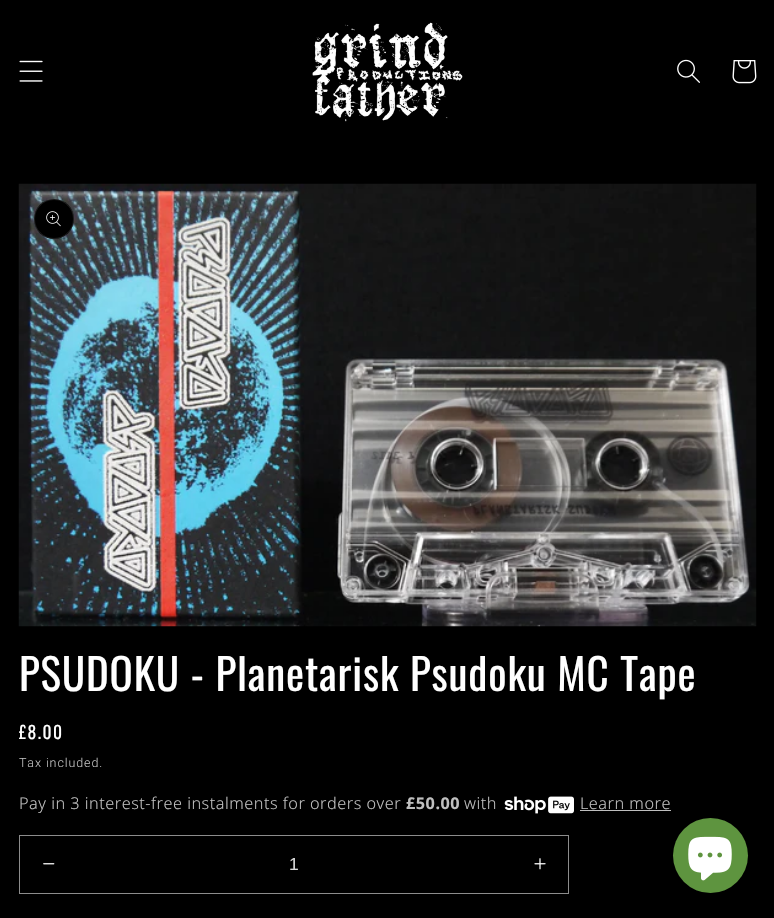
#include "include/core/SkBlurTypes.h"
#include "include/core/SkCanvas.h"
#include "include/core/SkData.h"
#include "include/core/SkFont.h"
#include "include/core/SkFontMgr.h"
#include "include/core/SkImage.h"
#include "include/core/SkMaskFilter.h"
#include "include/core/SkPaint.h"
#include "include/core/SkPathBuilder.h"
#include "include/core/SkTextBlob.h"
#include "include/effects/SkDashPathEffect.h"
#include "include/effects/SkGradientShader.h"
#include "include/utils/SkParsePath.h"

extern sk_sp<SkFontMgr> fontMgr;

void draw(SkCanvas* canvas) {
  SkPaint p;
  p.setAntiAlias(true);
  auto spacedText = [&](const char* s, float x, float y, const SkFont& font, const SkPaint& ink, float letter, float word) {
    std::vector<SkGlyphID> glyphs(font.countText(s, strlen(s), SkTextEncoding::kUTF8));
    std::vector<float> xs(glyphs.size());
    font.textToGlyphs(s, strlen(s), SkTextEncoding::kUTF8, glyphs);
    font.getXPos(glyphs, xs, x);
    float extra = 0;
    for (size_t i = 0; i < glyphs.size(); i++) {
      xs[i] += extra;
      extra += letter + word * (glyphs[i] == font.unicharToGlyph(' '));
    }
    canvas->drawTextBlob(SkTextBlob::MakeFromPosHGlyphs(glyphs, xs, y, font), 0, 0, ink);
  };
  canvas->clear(SK_ColorBLACK);
  canvas->drawImageRect(SkImages::DeferredFromEncodedData(SkData::MakeFromFileName("images/1.png")), SkRect::MakeLTRB(19, 60, 43, 82), SkSamplingOptions());
  canvas->drawImageRect(SkImages::DeferredFromEncodedData(SkData::MakeFromFileName("images/2.png")), SkRect::MakeLTRB(312, 22, 463, 122), SkSamplingOptions());
  canvas->drawImageRect(SkImages::DeferredFromEncodedData(SkData::MakeFromFileName("images/3.png")), SkRect::MakeLTRB(677, 59, 700, 83), SkSamplingOptions());
  canvas->drawImageRect(SkImages::DeferredFromEncodedData(SkData::MakeFromFileName("images/4.png")), SkRect::MakeLTRB(732, 60, 757, 84), SkSamplingOptions());
  canvas->drawImageRect(SkImages::DeferredFromEncodedData(SkData::MakeFromFileName("images/5.png")), SkRect::MakeLTRB(18, 183, 757, 627), SkSamplingOptions());
  p.setColor(SK_ColorBLACK);
  canvas->drawCircle(54, 219, 20, p);
  p.setStyle(SkPaint::kStroke_Style);
  p.setStrokeWidth(1);
  p.setColor(SkColorSetARGB(26, 255, 255, 255));
  canvas->drawCircle(54, 219, 19.5f, p);
  canvas->drawImageRect(SkImages::DeferredFromEncodedData(SkData::MakeFromFileName("images/6.png")), SkRect::MakeLTRB(46, 211, 61, 227), SkSamplingOptions());
  canvas->drawImageRect(SkImages::DeferredFromEncodedData(SkData::MakeFromFileName("images/7.png")), SkRect::MakeLTRB(504, 796, 574, 814), SkSamplingOptions());
  p.setStyle(SkPaint::kFill_Style);
  p.setColor(SkColorSetRGB(191, 191, 191));
  canvas->drawRect(SkRect::MakeLTRB(580, 810, 671, 811), p);
  canvas->drawImageRect(SkImages::DeferredFromEncodedData(SkData::MakeFromFileName("images/8.png")), SkRect::MakeLTRB(43, 863, 55, 865), SkSamplingOptions());
  canvas->drawImageRect(SkImages::DeferredFromEncodedData(SkData::MakeFromFileName("images/9.png")), SkRect::MakeLTRB(534, 858, 546, 870), SkSamplingOptions());
  p.setStyle(SkPaint::kStroke_Style);
  p.setColor(SkColorSetRGB(140, 140, 140));
  canvas->drawRect(SkRect::MakeLTRB(19.5f, 835.5f, 568.5f, 893.5f), p);
  p.setStyle(SkPaint::kFill_Style);
  p.setColor(SkColorSetRGB(94, 148, 63));
  canvas->drawCircle(710.5f, 855.5f, 37.5f, p);
  canvas->drawImageRect(SkImages::DeferredFromEncodedData(SkData::MakeFromFileName("images/10.png")), SkRect::MakeLTRB(688, 836, 732, 881), SkSamplingOptions());
  SkFont font1(fontMgr->matchFamilyStyle("Oswald", SkFontStyle::Normal()), 43.1f);
  font1.setSubpixel(true);
  p.setColor(SK_ColorWHITE);
  spacedText("PSUDOKU - Planetarisk Psudoku MC Tape", 19, 691, font1, p, 0.85f, 0);
  SkFont font2(fontMgr->matchFamilyStyle("Oswald", SkFontStyle::Normal()), 17.5f);
  font2.setSubpixel(true);
  spacedText("£8.00", 19, 739, font2, p, 1.5f, 0);
  SkFont font3(fontMgr->matchFamilyStyle("Roboto", SkFontStyle(300, SkFontStyle::kNormal_Width, SkFontStyle::kUpright_Slant)), 12.5f);
  font3.setSubpixel(true);
  p.setColor(SkColorSetRGB(191, 191, 191));
  spacedText("Tax included.", 19, 767, font3, p, 0.9f, 0);
  SkFont font4(fontMgr->matchFamilyStyle("Noto Sans", SkFontStyle(300, SkFontStyle::kNormal_Width, SkFontStyle::kUpright_Slant)), 16.25f);
  font4.setSubpixel(true);
  spacedText("Pay in 3 interest-free instalments for orders over", 19, 809, font4, p, 0.5f, 0);
  SkFont font5(fontMgr->matchFamilyStyle("Noto Sans", SkFontStyle::Bold()), 16.25f);
  font5.setSubpixel(true);
  spacedText("£50.00", 406, 809, font5, p, 0.5f, 0);
  spacedText("with", 464, 809, font4, p, 0.5f, 0);
  spacedText("Learn more", 580, 809, font4, p, 0.5f, 0);
  SkFont font6(fontMgr->matchFamilyStyle("Liberation Sans", SkFontStyle::Normal()), 17.5f);
  font6.setSubpixel(true);
  p.setColor(SkColorSetRGB(217, 217, 217));
  canvas->drawString("1", 289, 870, font6, p);
}
